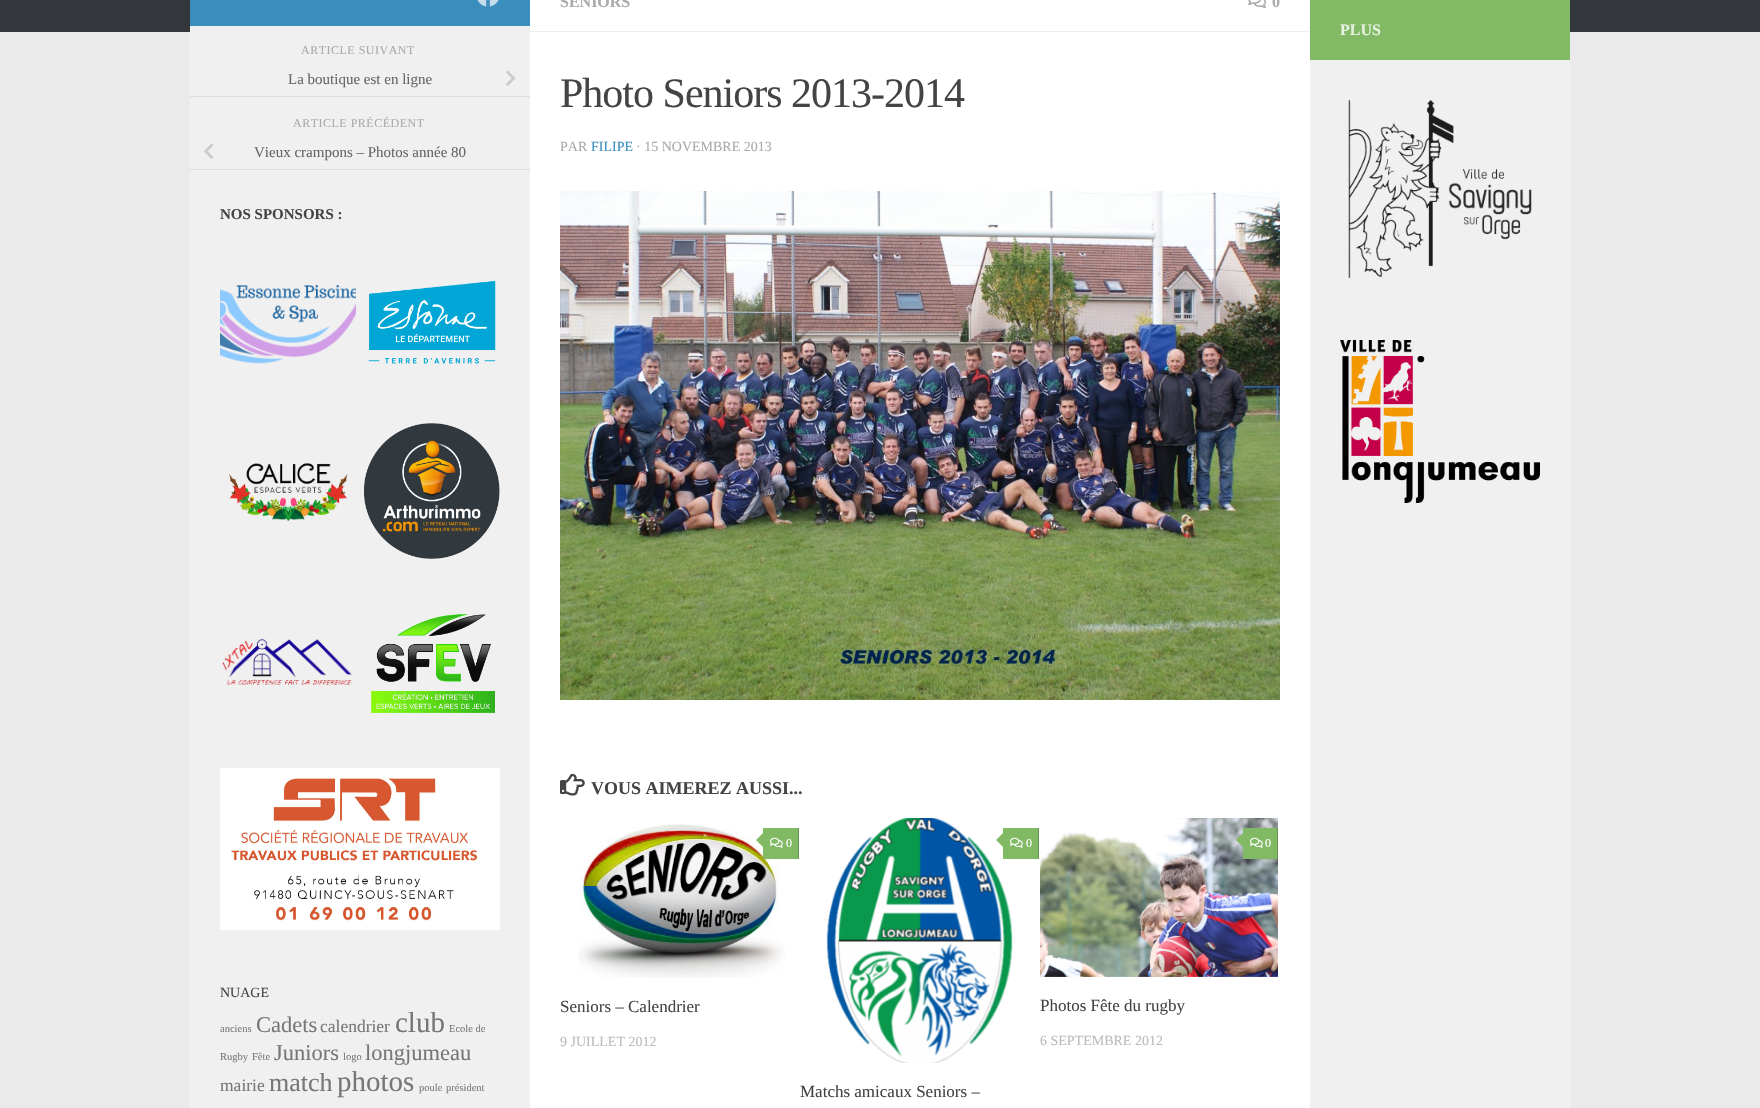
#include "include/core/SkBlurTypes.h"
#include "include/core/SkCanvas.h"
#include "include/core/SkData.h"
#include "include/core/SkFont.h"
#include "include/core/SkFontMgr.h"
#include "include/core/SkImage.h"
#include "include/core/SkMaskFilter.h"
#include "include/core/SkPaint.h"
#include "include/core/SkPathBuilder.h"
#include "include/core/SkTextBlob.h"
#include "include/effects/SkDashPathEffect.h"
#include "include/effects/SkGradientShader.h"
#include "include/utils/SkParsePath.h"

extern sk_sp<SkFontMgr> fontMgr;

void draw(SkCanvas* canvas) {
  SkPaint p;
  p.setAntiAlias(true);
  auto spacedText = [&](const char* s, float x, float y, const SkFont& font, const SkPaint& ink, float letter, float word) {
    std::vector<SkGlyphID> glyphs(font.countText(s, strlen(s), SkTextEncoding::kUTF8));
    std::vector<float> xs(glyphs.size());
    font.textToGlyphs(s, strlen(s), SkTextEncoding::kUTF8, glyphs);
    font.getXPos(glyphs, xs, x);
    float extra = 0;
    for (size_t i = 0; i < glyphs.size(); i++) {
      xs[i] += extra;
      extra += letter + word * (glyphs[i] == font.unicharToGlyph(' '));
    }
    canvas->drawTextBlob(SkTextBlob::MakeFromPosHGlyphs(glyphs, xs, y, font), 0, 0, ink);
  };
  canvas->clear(SkColorSetRGB(234, 234, 234));
  p.setColor(SkColorSetRGB(51, 54, 59));
  canvas->drawRect(SkRect::MakeLTRB(0, 0, 1760, 32), p);
  p.setColor(SK_ColorWHITE);
  canvas->drawRect(SkRect::MakeLTRB(530, 0, 1310, 1108), p);
  p.setColor(SkColorSetRGB(238, 238, 238));
  canvas->drawRect(SkRect::MakeLTRB(530, 31, 1310, 32), p);
  canvas->drawImageRect(SkImages::DeferredFromEncodedData(SkData::MakeFromFileName("images/1.png")), SkRect::MakeLTRB(1248, 0, 1266, 8), SkSamplingOptions());
  canvas->drawImageRect(SkImages::DeferredFromEncodedData(SkData::MakeFromFileName("images/2.png")), SkRect::MakeLTRB(560, 191, 1280, 700), SkSamplingOptions());
  canvas->drawImageRect(SkImages::DeferredFromEncodedData(SkData::MakeFromFileName("images/3.png")), SkRect::MakeLTRB(560, 773, 585, 796), SkSamplingOptions());
  canvas->drawImageRect(SkImages::DeferredFromEncodedData(SkData::MakeFromFileName("images/4.png")), SkRect::MakeLTRB(578, 824, 785, 978), SkSamplingOptions());
  p.setColor(SkColorSetRGB(130, 185, 101));
  canvas->drawRect(SkRect::MakeLTRB(763, 828, 798, 859), p);
  p.setColor(SkColorSetRGB(104, 148, 81));
  canvas->drawRect(SkRect::MakeLTRB(798, 828, 799, 859), p);
  p.setColor(SkColorSetRGB(130, 185, 101));
  canvas->drawPath(SkPathBuilder().moveTo(765, 831).lineTo(765, 849).lineTo(756, 840).close().detach(), p);
  canvas->drawImageRect(SkImages::DeferredFromEncodedData(SkData::MakeFromFileName("images/5.png")), SkRect::MakeLTRB(770, 837, 783, 848), SkSamplingOptions());
  canvas->drawImageRect(SkImages::DeferredFromEncodedData(SkData::MakeFromFileName("images/6.png")), SkRect::MakeLTRB(826, 818, 1013, 1063), SkSamplingOptions());
  canvas->drawRect(SkRect::MakeLTRB(1003, 828, 1038, 859), p);
  p.setColor(SkColorSetRGB(104, 148, 81));
  canvas->drawRect(SkRect::MakeLTRB(1038, 828, 1039, 859), p);
  p.setColor(SkColorSetRGB(130, 185, 101));
  canvas->drawPath(SkPathBuilder().moveTo(1005, 831).lineTo(1005, 849).lineTo(996, 840).close().detach(), p);
  canvas->drawImageRect(SkImages::DeferredFromEncodedData(SkData::MakeFromFileName("images/5.png")), SkRect::MakeLTRB(1010, 837, 1023, 848), SkSamplingOptions());
  canvas->drawImageRect(SkImages::DeferredFromEncodedData(SkData::MakeFromFileName("images/7.png")), SkRect::MakeLTRB(1040, 818, 1278, 977), SkSamplingOptions());
  canvas->drawRect(SkRect::MakeLTRB(1243, 828, 1277, 859), p);
  p.setColor(SkColorSetRGB(104, 148, 81));
  canvas->drawRect(SkRect::MakeLTRB(1277, 828, 1278, 859), p);
  p.setColor(SkColorSetRGB(130, 185, 101));
  canvas->drawPath(SkPathBuilder().moveTo(1245, 831).lineTo(1245, 849).lineTo(1236, 840).close().detach(), p);
  canvas->drawImageRect(SkImages::DeferredFromEncodedData(SkData::MakeFromFileName("images/5.png")), SkRect::MakeLTRB(1250, 837, 1263, 848), SkSamplingOptions());
  canvas->drawRect(SkRect::MakeLTRB(1310, 0, 1570, 60), p);
  p.setColor(SkColorSetRGB(240, 240, 240));
  canvas->drawRect(SkRect::MakeLTRB(1310, 60, 1570, 1108), p);
  canvas->drawImageRect(SkImages::DeferredFromEncodedData(SkData::MakeFromFileName("images/8.png")), SkRect::MakeLTRB(1348, 99, 1532, 278), SkSamplingOptions());
  canvas->drawImageRect(SkImages::DeferredFromEncodedData(SkData::MakeFromFileName("images/9.png")), SkRect::MakeLTRB(1340, 340, 1540, 503), SkSamplingOptions());
  p.setColor(SkColorSetRGB(59, 141, 189));
  canvas->drawRect(SkRect::MakeLTRB(190, 0, 530, 26), p);
  canvas->drawImageRect(SkImages::DeferredFromEncodedData(SkData::MakeFromFileName("images/10.png")), SkRect::MakeLTRB(477, 0, 499, 7), SkSamplingOptions());
  p.setColor(SkColorSetRGB(240, 240, 240));
  canvas->drawRect(SkRect::MakeLTRB(190, 26, 530, 1108), p);
  p.setColor(SkColorSetRGB(221, 221, 221));
  canvas->drawRect(SkRect::MakeLTRB(190, 96, 530, 97), p);
  canvas->drawImageRect(SkImages::DeferredFromEncodedData(SkData::MakeFromFileName("images/11.png")), SkRect::MakeLTRB(506, 70, 516, 86), SkSamplingOptions());
  canvas->drawRect(SkRect::MakeLTRB(190, 169, 530, 170), p);
  canvas->drawImageRect(SkImages::DeferredFromEncodedData(SkData::MakeFromFileName("images/12.png")), SkRect::MakeLTRB(204, 143, 214, 159), SkSamplingOptions());
  canvas->drawImageRect(SkImages::DeferredFromEncodedData(SkData::MakeFromFileName("images/13.png")), SkRect::MakeLTRB(220, 285, 356, 364), SkSamplingOptions());
  canvas->drawImageRect(SkImages::DeferredFromEncodedData(SkData::MakeFromFileName("images/14.png")), SkRect::MakeLTRB(368, 281, 496, 364), SkSamplingOptions());
  canvas->drawImageRect(SkImages::DeferredFromEncodedData(SkData::MakeFromFileName("images/15.png")), SkRect::MakeLTRB(229, 463, 348, 521), SkSamplingOptions());
  canvas->drawImageRect(SkImages::DeferredFromEncodedData(SkData::MakeFromFileName("images/16.png")), SkRect::MakeLTRB(364, 423, 500, 559), SkSamplingOptions());
  canvas->drawImageRect(SkImages::DeferredFromEncodedData(SkData::MakeFromFileName("images/17.png")), SkRect::MakeLTRB(222, 639, 352, 685), SkSamplingOptions());
  canvas->drawImageRect(SkImages::DeferredFromEncodedData(SkData::MakeFromFileName("images/18.png")), SkRect::MakeLTRB(371, 614, 495, 713), SkSamplingOptions());
  canvas->drawImageRect(SkImages::DeferredFromEncodedData(SkData::MakeFromFileName("images/19.png")), SkRect::MakeLTRB(220, 768, 500, 930), SkSamplingOptions());
  SkFont font1(fontMgr->matchFamilyStyle("Liberation Serif", SkFontStyle::Bold()), 16);
  font1.setSubpixel(true);
  p.setColor(SkColorSetRGB(170, 170, 170));
  canvas->drawString("SENIORS", 560, 7, font1, p);
  canvas->drawString("0", 1272, 7, font1, p);
  SkFont font2(fontMgr->matchFamilyStyle("Liberation Serif", SkFontStyle::Normal()), 42);
  font2.setSubpixel(true);
  p.setColor(SkColorSetRGB(68, 68, 68));
  spacedText("Photo Seniors 2013-2014", 560, 107, font2, p, -1, 0);
  SkFont font3(fontMgr->matchFamilyStyle("Liberation Serif", SkFontStyle::Normal()), 14);
  font3.setSubpixel(true);
  p.setColor(SkColorSetRGB(170, 170, 170));
  canvas->drawString("PAR", 560, 151, font3, p);
  p.setColor(SkColorSetRGB(59, 141, 189));
  canvas->drawString("FILIPE", 591, 151, font3, p);
  p.setColor(SkColorSetRGB(170, 170, 170));
  canvas->drawString("· 15 NOVEMBRE 2013", 636, 151, font3, p);
  SkFont font4(fontMgr->matchFamilyStyle("Liberation Serif", SkFontStyle::Bold()), 18);
  font4.setSubpixel(true);
  p.setColor(SkColorSetRGB(68, 68, 68));
  canvas->drawString("VOUS AIMEREZ AUSSI...", 591, 794, font4, p);
  SkFont font5(fontMgr->matchFamilyStyle("Liberation Serif", SkFontStyle::Normal()), 12);
  font5.setSubpixel(true);
  p.setColor(SK_ColorWHITE);
  canvas->drawString("0", 786, 847, font5, p);
  SkFont font6(fontMgr->matchFamilyStyle("Liberation Serif", SkFontStyle::Normal()), 17);
  font6.setSubpixel(true);
  p.setColor(SkColorSetRGB(68, 68, 68));
  canvas->drawString("Seniors – Calendrier", 560, 1012, font6, p);
  p.setColor(SkColorSetRGB(187, 187, 187));
  canvas->drawString("9 JUILLET 2012", 560, 1046, font3, p);
  p.setColor(SK_ColorWHITE);
  canvas->drawString("0", 1026, 847, font5, p);
  p.setColor(SkColorSetRGB(68, 68, 68));
  canvas->drawString("Matchs amicaux Seniors –", 800, 1097, font6, p);
  p.setColor(SK_ColorWHITE);
  canvas->drawString("0", 1265, 847, font5, p);
  p.setColor(SkColorSetRGB(68, 68, 68));
  canvas->drawString("Photos Fête du rugby", 1040, 1011, font6, p);
  p.setColor(SkColorSetRGB(187, 187, 187));
  canvas->drawString("6 SEPTEMBRE 2012", 1040, 1045, font3, p);
  p.setColor(SkColorSetRGB(230, 241, 224));
  canvas->drawString("PLUS", 1340, 35, font1, p);
  p.setColor(SkColorSetRGB(170, 170, 170));
  spacedText("ARTICLE SUIVANT", 301, 54, font5, p, 0.5f, 0);
  SkFont font7(fontMgr->matchFamilyStyle("Liberation Serif", SkFontStyle::Normal()), 15);
  font7.setSubpixel(true);
  p.setColor(SkColorSetRGB(102, 102, 102));
  canvas->drawString("La boutique est en ligne", 288, 84, font7, p);
  p.setColor(SkColorSetRGB(170, 170, 170));
  spacedText("ARTICLE PRÉCÉDENT", 293, 127, font5, p, 0.5f, 0);
  p.setColor(SkColorSetRGB(102, 102, 102));
  canvas->drawString("Vieux crampons – Photos année 80", 254, 157, font7, p);
  SkFont font8(fontMgr->matchFamilyStyle("Liberation Serif", SkFontStyle::Bold()), 15);
  font8.setSubpixel(true);
  p.setColor(SkColorSetRGB(68, 68, 68));
  canvas->drawString("NOS SPONSORS :", 220, 219, font8, p);
  canvas->drawString("NUAGE", 220, 997, font3, p);
  SkFont font9(fontMgr->matchFamilyStyle("Liberation Serif", SkFontStyle::Normal()), 10.5f);
  font9.setSubpixel(true);
  p.setColor(SkColorSetRGB(119, 119, 119));
  canvas->drawString("anciens", 220, 1032, font9, p);
  SkFont font10(fontMgr->matchFamilyStyle("Liberation Serif", SkFontStyle::Normal()), 22.5f);
  font10.setSubpixel(true);
  canvas->drawString("Cadets", 256, 1032, font10, p);
  SkFont font11(fontMgr->matchFamilyStyle("Liberation Serif", SkFontStyle::Normal()), 17.5f);
  font11.setSubpixel(true);
  canvas->drawString("calendrier", 320, 1032, font11, p);
  SkFont font12(fontMgr->matchFamilyStyle("Liberation Serif", SkFontStyle::Normal()), 29);
  font12.setSubpixel(true);
  canvas->drawString("club", 395, 1032, font12, p);
  canvas->drawString("Ecole de", 449, 1032, font9, p);
  canvas->drawString("Rugby", 220, 1060, font9, p);
  canvas->drawString("Fête", 252, 1060, font9, p);
  canvas->drawString("Juniors", 274, 1060, font10, p);
  canvas->drawString("logo", 343, 1060, font9, p);
  canvas->drawString("longjumeau", 365, 1060, font10, p);
  canvas->drawString("mairie", 220, 1091, font11, p);
  SkFont font13(fontMgr->matchFamilyStyle("Liberation Serif", SkFontStyle::Normal()), 26);
  font13.setSubpixel(true);
  canvas->drawString("match", 269, 1091, font13, p);
  canvas->drawString("photos", 337, 1091, font12, p);
  canvas->drawString("poule", 419, 1091, font9, p);
  canvas->drawString("président", 446, 1091, font9, p);
}
